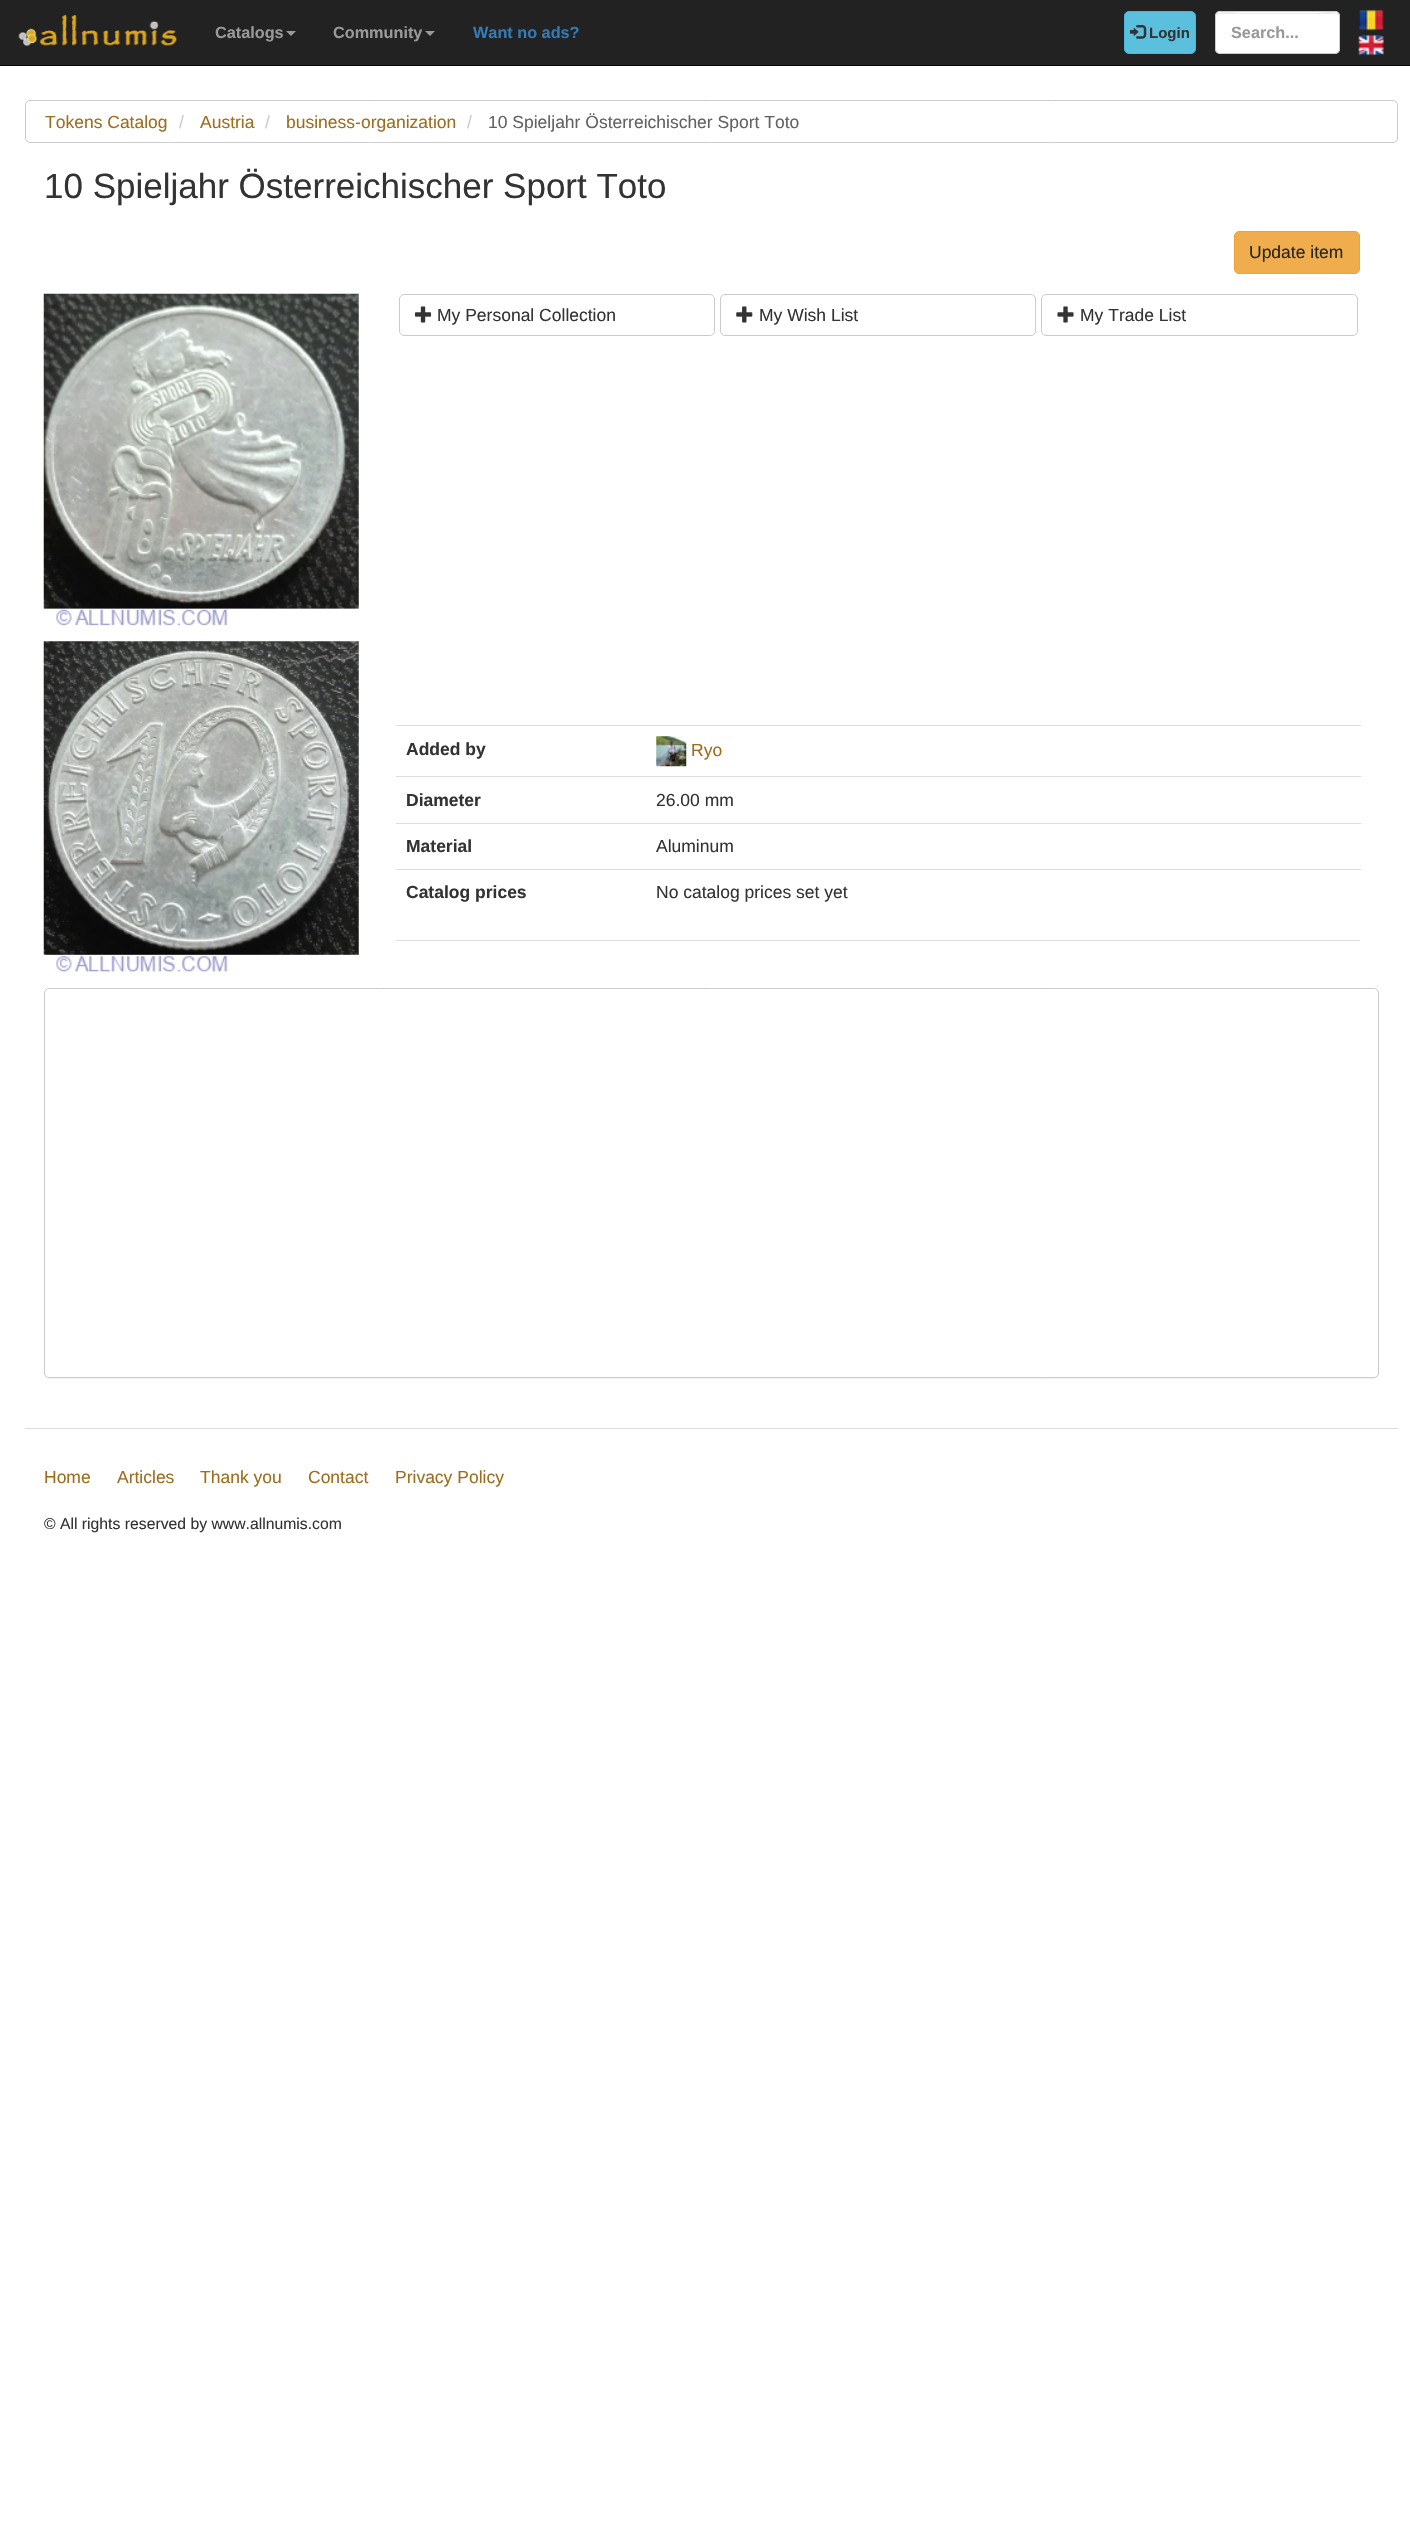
#include "include/core/SkBlurTypes.h"
#include "include/core/SkCanvas.h"
#include "include/core/SkData.h"
#include "include/core/SkFont.h"
#include "include/core/SkFontMgr.h"
#include "include/core/SkImage.h"
#include "include/core/SkMaskFilter.h"
#include "include/core/SkPaint.h"
#include "include/core/SkPathBuilder.h"
#include "include/core/SkTextBlob.h"
#include "include/effects/SkDashPathEffect.h"
#include "include/effects/SkGradientShader.h"
#include "include/utils/SkParsePath.h"

extern sk_sp<SkFontMgr> fontMgr;

void draw(SkCanvas* canvas) {
  SkPaint p;
  p.setAntiAlias(true);
  canvas->clear(SK_ColorWHITE);
  p.setColor(SkColorSetRGB(34, 34, 34));
  canvas->drawRect(SkRect::MakeLTRB(0, 0, 1410, 65), p);
  p.setColor(SkColorSetRGB(8, 8, 8));
  canvas->drawRect(SkRect::MakeLTRB(0, 65, 1410, 66), p);
  canvas->drawImageRect(SkImages::DeferredFromEncodedData(SkData::MakeFromFileName("images/1.png")), SkRect::MakeLTRB(18, 15, 177, 47), SkSamplingOptions());
  p.setColor(SkColorSetRGB(153, 153, 153));
  canvas->drawPath(SkPathBuilder().moveTo(286, 31).lineTo(296, 31).lineTo(291, 36).close().detach(), p);
  canvas->drawPath(SkPathBuilder().moveTo(425, 31).lineTo(435, 31).lineTo(430, 36).close().detach(), p);
  p.setColor(SkColorSetRGB(91, 192, 222));
  canvas->drawRoundRect(SkRect::MakeLTRB(1124.5f, 11.5f, 1195.5f, 53.5f), 4.5f, 4.5f, p);
  p.setStyle(SkPaint::kStroke_Style);
  p.setStrokeWidth(1);
  p.setColor(SkColorSetRGB(70, 184, 218));
  canvas->drawRoundRect(SkRect::MakeLTRB(1124.5f, 11.5f, 1195.5f, 53.5f), 4.5f, 4.5f, p);
  canvas->drawImageRect(SkImages::DeferredFromEncodedData(SkData::MakeFromFileName("images/2.png")), SkRect::MakeLTRB(1130, 25, 1147, 39), SkSamplingOptions());
  p.setStyle(SkPaint::kFill_Style);
  p.setColor(SK_ColorWHITE);
  canvas->drawRoundRect(SkRect::MakeLTRB(1215, 11, 1340, 54), 5, 5, p);
  p.setColor(SkColorSetRGB(236, 236, 236));
  canvas->drawPath(SkPathBuilder().moveTo(1220, 14).lineTo(1335, 14).cubicTo(1337, 14, 1339, 15, 1339, 18).cubicTo(1339, 8, 1319, 13, 1316, 13).lineTo(1239, 13).cubicTo(1236, 13, 1216, 8, 1216, 18).cubicTo(1216, 15, 1218, 14, 1220, 14).close().detach(), p);
  p.setStyle(SkPaint::kStroke_Style);
  p.setColor(SkColorSetRGB(204, 204, 204));
  canvas->drawRoundRect(SkRect::MakeLTRB(1215.5f, 11.5f, 1339.5f, 53.5f), 4.5f, 4.5f, p);
  canvas->drawImageRect(SkImages::DeferredFromEncodedData(SkData::MakeFromFileName("images/3.png")), SkRect::MakeLTRB(1358, 9, 1384, 31), SkSamplingOptions());
  canvas->drawImageRect(SkImages::DeferredFromEncodedData(SkData::MakeFromFileName("images/4.png")), SkRect::MakeLTRB(1358, 34, 1384, 56), SkSamplingOptions());
  canvas->drawRoundRect(SkRect::MakeLTRB(25.5f, 100.5f, 1397.5f, 142.5f), 4.5f, 4.5f, p);
  p.setStyle(SkPaint::kFill_Style);
  p.setColor(SkColorSetRGB(240, 173, 78));
  canvas->drawRoundRect(SkRect::MakeLTRB(1234.5f, 231.5f, 1359.5f, 273.5f), 4.5f, 4.5f, p);
  p.setStyle(SkPaint::kStroke_Style);
  p.setColor(SkColorSetRGB(238, 162, 54));
  canvas->drawRoundRect(SkRect::MakeLTRB(1234.5f, 231.5f, 1359.5f, 273.5f), 4.5f, 4.5f, p);
  canvas->drawImageRect(SkImages::DeferredFromEncodedData(SkData::MakeFromFileName("images/5.png")), SkRect::MakeLTRB(43, 293, 359, 626), SkSamplingOptions());
  canvas->drawImageRect(SkImages::DeferredFromEncodedData(SkData::MakeFromFileName("images/6.png")), SkRect::MakeLTRB(43, 641, 359, 972), SkSamplingOptions());
  p.setColor(SkColorSetRGB(204, 204, 204));
  canvas->drawRoundRect(SkRect::MakeLTRB(399.5f, 294.5f, 714.5f, 335.5f), 4.5f, 4.5f, p);
  canvas->drawImageRect(SkImages::DeferredFromEncodedData(SkData::MakeFromFileName("images/7.png")), SkRect::MakeLTRB(415, 306, 432, 323), SkSamplingOptions());
  canvas->drawRoundRect(SkRect::MakeLTRB(720.5f, 294.5f, 1035.5f, 335.5f), 4.5f, 4.5f, p);
  canvas->drawImageRect(SkImages::DeferredFromEncodedData(SkData::MakeFromFileName("images/8.png")), SkRect::MakeLTRB(736, 306, 753, 323), SkSamplingOptions());
  canvas->drawRoundRect(SkRect::MakeLTRB(1041.5f, 294.5f, 1357.5f, 335.5f), 4.5f, 4.5f, p);
  canvas->drawImageRect(SkImages::DeferredFromEncodedData(SkData::MakeFromFileName("images/9.png")), SkRect::MakeLTRB(1057, 306, 1074, 323), SkSamplingOptions());
  p.setStyle(SkPaint::kFill_Style);
  p.setColor(SkColorSetRGB(221, 221, 221));
  canvas->drawRect(SkRect::MakeLTRB(396, 725, 1361, 726), p);
  canvas->drawImageRect(SkImages::DeferredFromEncodedData(SkData::MakeFromFileName("images/10.png")), SkRect::MakeLTRB(656, 736, 687, 767), SkSamplingOptions());
  canvas->drawRect(SkRect::MakeLTRB(396, 776, 1361, 777), p);
  canvas->drawRect(SkRect::MakeLTRB(396, 823, 1361, 824), p);
  canvas->drawRect(SkRect::MakeLTRB(396, 869, 1361, 870), p);
  canvas->drawRect(SkRect::MakeLTRB(396, 940, 1360, 941), p);
  p.setColor(SkColorSetARGB(13, 0, 0, 0));
  p.setMaskFilter(SkMaskFilter::MakeBlur(kNormal_SkBlurStyle, 0.5f));
  canvas->drawRoundRect(SkRect::MakeLTRB(44, 989, 1379, 1379), 5, 5, p);
  p.setMaskFilter(nullptr);
  p.setColor(SK_ColorWHITE);
  canvas->drawRoundRect(SkRect::MakeLTRB(44.5f, 988.5f, 1378.5f, 1377.5f), 4.5f, 4.5f, p);
  p.setStyle(SkPaint::kStroke_Style);
  p.setColor(SkColorSetRGB(204, 204, 204));
  canvas->drawRoundRect(SkRect::MakeLTRB(44.5f, 988.5f, 1378.5f, 1377.5f), 4.5f, 4.5f, p);
  p.setStyle(SkPaint::kFill_Style);
  p.setColor(SkColorSetRGB(221, 221, 221));
  canvas->drawRect(SkRect::MakeLTRB(25, 1428, 1398, 1429), p);
  SkFont font1(fontMgr->matchFamilyStyle("Liberation Sans", SkFontStyle::Bold()), 16.25f);
  font1.setSubpixel(true);
  p.setColor(SkColorSetRGB(153, 153, 153));
  canvas->drawString("Catalogs", 215, 38, font1, p);
  canvas->drawString("Community", 333, 38, font1, p);
  p.setColor(SkColorSetRGB(51, 122, 183));
  canvas->drawString("Want no ads?", 473, 38, font1, p);
  SkFont font2(fontMgr->matchFamilyStyle("Liberation Sans", SkFontStyle::Bold()), 15);
  font2.setSubpixel(true);
  p.setColor(SkColorSetRGB(51, 51, 51));
  canvas->drawString("Login", 1149, 38, font2, p);
  p.setColor(SkColorSetRGB(153, 153, 153));
  canvas->drawString("Search...", 1231, 38, font1, p);
  SkFont font3(fontMgr->matchFamilyStyle("Liberation Sans", SkFontStyle::Normal()), 17.5f);
  font3.setSubpixel(true);
  p.setColor(SkColorSetRGB(158, 109, 29));
  canvas->drawString("Tokens Catalog", 45, 128, font3, p);
  p.setColor(SkColorSetRGB(204, 204, 204));
  canvas->drawString("/", 179, 128, font3, p);
  p.setColor(SkColorSetRGB(158, 109, 29));
  canvas->drawString("Austria", 200, 128, font3, p);
  p.setColor(SkColorSetRGB(204, 204, 204));
  canvas->drawString("/", 265, 128, font3, p);
  p.setColor(SkColorSetRGB(158, 109, 29));
  canvas->drawString("business-organization", 286, 128, font3, p);
  p.setColor(SkColorSetRGB(204, 204, 204));
  canvas->drawString("/", 467, 128, font3, p);
  p.setColor(SkColorSetRGB(99, 97, 97));
  canvas->drawString("10 Spieljahr Österreichischer Sport Toto", 488, 128, font3, p);
  SkFont font4(fontMgr->matchFamilyStyle("Liberation Sans", SkFontStyle::Normal()), 35);
  font4.setSubpixel(true);
  p.setColor(SkColorSetRGB(51, 51, 51));
  canvas->drawString("10 Spieljahr Österreichischer Sport Toto", 44, 198, font4, p);
  p.setColor(SkColorSetRGB(37, 37, 37));
  canvas->drawString("Update item", 1249, 258, font3, p);
  p.setColor(SkColorSetRGB(51, 51, 51));
  canvas->drawString("My Personal Collection", 437, 321, font3, p);
  canvas->drawString("My Wish List", 759, 321, font3, p);
  canvas->drawString("My Trade List", 1080, 321, font3, p);
  SkFont font5(fontMgr->matchFamilyStyle("Liberation Sans", SkFontStyle::Bold()), 17.5f);
  font5.setSubpixel(true);
  canvas->drawString("Added by", 406, 755, font5, p);
  p.setColor(SkColorSetRGB(158, 109, 29));
  canvas->drawString("Ryo", 691, 756, font3, p);
  p.setColor(SkColorSetRGB(51, 51, 51));
  canvas->drawString("Diameter", 406, 806, font5, p);
  canvas->drawString("26.00 mm", 656, 806, font3, p);
  canvas->drawString("Material", 406, 852, font5, p);
  canvas->drawString("Aluminum", 656, 852, font3, p);
  canvas->drawString("Catalog prices", 406, 898, font5, p);
  canvas->drawString("No catalog prices set yet", 656, 898, font3, p);
  p.setColor(SkColorSetRGB(158, 109, 29));
  canvas->drawString("Home", 44, 1483, font3, p);
  canvas->drawString("Articles", 117, 1483, font3, p);
  canvas->drawString("Thank you", 200, 1483, font3, p);
  canvas->drawString("Contact", 308, 1483, font3, p);
  canvas->drawString("Privacy Policy", 395, 1483, font3, p);
  SkFont font6(fontMgr->matchFamilyStyle("Liberation Sans", SkFontStyle::Normal()), 15.75f);
  font6.setSubpixel(true);
  p.setColor(SkColorSetRGB(51, 51, 51));
  canvas->drawString("© All rights reserved by www.allnumis.com", 44, 1529, font6, p);
}
